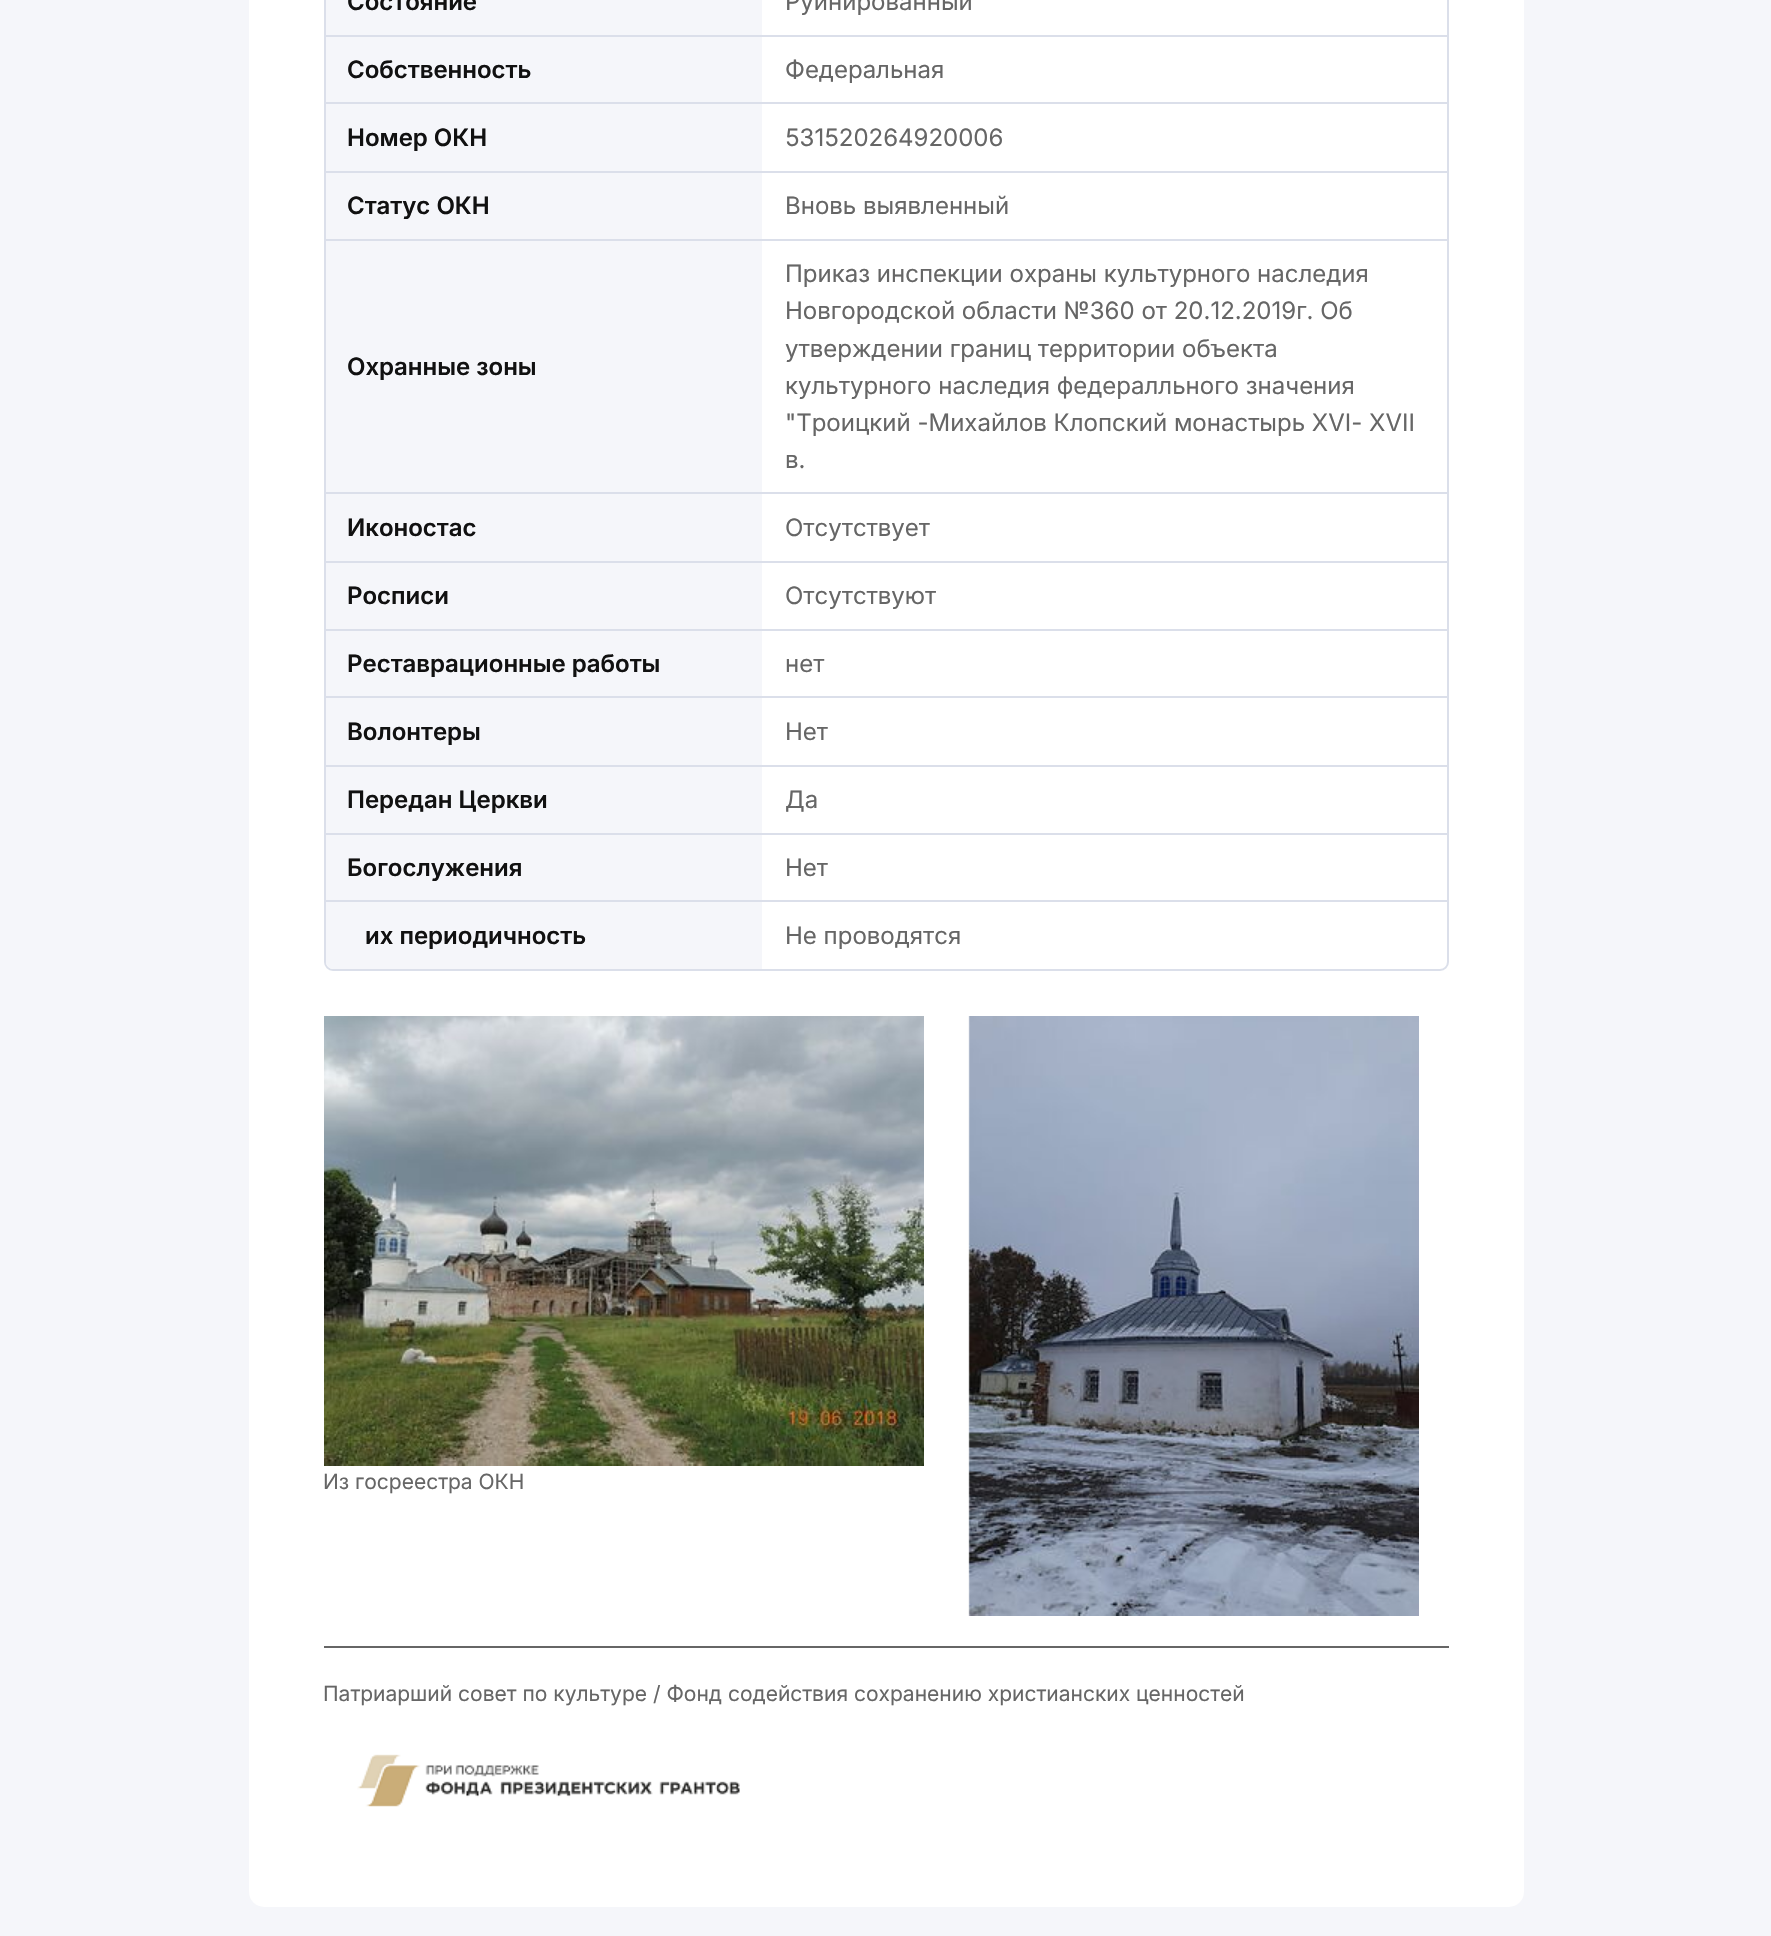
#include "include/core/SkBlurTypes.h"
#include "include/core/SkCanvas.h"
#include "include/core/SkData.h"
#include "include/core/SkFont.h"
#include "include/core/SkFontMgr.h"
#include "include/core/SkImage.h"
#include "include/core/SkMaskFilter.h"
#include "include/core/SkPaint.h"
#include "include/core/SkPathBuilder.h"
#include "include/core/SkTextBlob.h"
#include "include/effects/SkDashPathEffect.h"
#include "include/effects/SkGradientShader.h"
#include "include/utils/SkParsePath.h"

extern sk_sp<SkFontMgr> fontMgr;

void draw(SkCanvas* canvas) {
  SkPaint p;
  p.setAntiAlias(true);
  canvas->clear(SkColorSetRGB(245, 246, 250));
  p.setColor(SK_ColorWHITE);
  canvas->drawRoundRect(SkRect::MakeLTRB(249, -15, 1524, 1907), 15, 15, p);
  p.setStyle(SkPaint::kStroke_Style);
  p.setStrokeWidth(2);
  p.setColor(SkColorSetRGB(219, 223, 234));
  canvas->drawRoundRect(SkRect::MakeLTRB(325, -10, 1448, 970), 8, 8, p);
  p.setStyle(SkPaint::kFill_Style);
  p.setColor(SkColorSetRGB(245, 246, 250));
  canvas->drawRect(SkRect::MakeLTRB(326, 0, 762, 35), p);
  canvas->drawRect(SkRect::MakeLTRB(326, 37, 762, 102), p);
  p.setColor(SkColorSetRGB(219, 223, 234));
  canvas->drawRect(SkRect::MakeLTRB(326, 35, 1448, 37), p);
  p.setColor(SkColorSetRGB(245, 246, 250));
  canvas->drawRect(SkRect::MakeLTRB(326, 104, 762, 171), p);
  p.setColor(SkColorSetRGB(219, 223, 234));
  canvas->drawRect(SkRect::MakeLTRB(326, 102, 1448, 104), p);
  p.setColor(SkColorSetRGB(245, 246, 250));
  canvas->drawRect(SkRect::MakeLTRB(326, 173, 762, 239), p);
  p.setColor(SkColorSetRGB(219, 223, 234));
  canvas->drawRect(SkRect::MakeLTRB(326, 171, 1448, 173), p);
  p.setColor(SkColorSetRGB(245, 246, 250));
  canvas->drawRect(SkRect::MakeLTRB(326, 241, 762, 492), p);
  p.setColor(SkColorSetRGB(219, 223, 234));
  canvas->drawRect(SkRect::MakeLTRB(326, 239, 1448, 241), p);
  p.setColor(SkColorSetRGB(245, 246, 250));
  canvas->drawRect(SkRect::MakeLTRB(326, 494, 762, 561), p);
  p.setColor(SkColorSetRGB(219, 223, 234));
  canvas->drawRect(SkRect::MakeLTRB(326, 492, 1448, 494), p);
  p.setColor(SkColorSetRGB(245, 246, 250));
  canvas->drawRect(SkRect::MakeLTRB(326, 563, 762, 629), p);
  p.setColor(SkColorSetRGB(219, 223, 234));
  canvas->drawRect(SkRect::MakeLTRB(326, 561, 1448, 563), p);
  p.setColor(SkColorSetRGB(245, 246, 250));
  canvas->drawRect(SkRect::MakeLTRB(326, 631, 762, 696), p);
  p.setColor(SkColorSetRGB(219, 223, 234));
  canvas->drawRect(SkRect::MakeLTRB(326, 629, 1448, 631), p);
  p.setColor(SkColorSetRGB(245, 246, 250));
  canvas->drawRect(SkRect::MakeLTRB(326, 698, 762, 765), p);
  p.setColor(SkColorSetRGB(219, 223, 234));
  canvas->drawRect(SkRect::MakeLTRB(326, 696, 1448, 698), p);
  p.setColor(SkColorSetRGB(245, 246, 250));
  canvas->drawRect(SkRect::MakeLTRB(326, 767, 762, 833), p);
  p.setColor(SkColorSetRGB(219, 223, 234));
  canvas->drawRect(SkRect::MakeLTRB(326, 765, 1448, 767), p);
  p.setColor(SkColorSetRGB(245, 246, 250));
  canvas->drawRect(SkRect::MakeLTRB(326, 835, 762, 900), p);
  p.setColor(SkColorSetRGB(219, 223, 234));
  canvas->drawRect(SkRect::MakeLTRB(326, 833, 1448, 835), p);
  p.setColor(SkColorSetRGB(245, 246, 250));
  canvas->drawPath(SkPathBuilder().moveTo(326, 902).lineTo(762, 902).lineTo(762, 969).lineTo(334, 969).cubicTo(329.5f, 969, 326, 965.5f, 326, 961).close().detach(), p);
  p.setColor(SkColorSetRGB(219, 223, 234));
  canvas->drawRect(SkRect::MakeLTRB(326, 900, 1448, 902), p);
  canvas->drawImageRect(SkImages::DeferredFromEncodedData(SkData::MakeFromFileName("images/1.png")), SkRect::MakeLTRB(324, 1016, 924, 1466), SkSamplingOptions());
  canvas->drawImageRect(SkImages::DeferredFromEncodedData(SkData::MakeFromFileName("images/2.png")), SkRect::MakeLTRB(968, 1016, 1419, 1616), SkSamplingOptions());
  p.setColor(SkColorSetRGB(102, 102, 102));
  canvas->drawRect(SkRect::MakeLTRB(324, 1646, 1449, 1648), p);
  canvas->drawImageRect(SkImages::DeferredFromEncodedData(SkData::MakeFromFileName("images/3.png")), SkRect::MakeLTRB(357, 1754, 740, 1807), SkSamplingOptions());
  SkFont font1(fontMgr->matchFamilyStyle("Inter", SkFontStyle(600, SkFontStyle::kNormal_Width, SkFontStyle::kUpright_Slant)), 24);
  font1.setSubpixel(true);
  p.setColor(SkColorSetRGB(17, 17, 17));
  canvas->drawString("Состояние", 347, 10, font1, p);
  SkFont font2(fontMgr->matchFamilyStyle("Inter", SkFontStyle::Normal()), 24);
  font2.setSubpixel(true);
  p.setColor(SkColorSetRGB(102, 102, 102));
  canvas->drawString("Руинированный", 785, 10, font2, p);
  p.setColor(SkColorSetRGB(17, 17, 17));
  canvas->drawString("Собственность", 347, 78, font1, p);
  p.setColor(SkColorSetRGB(102, 102, 102));
  canvas->drawString("Федеральная", 785, 78, font2, p);
  p.setColor(SkColorSetRGB(17, 17, 17));
  canvas->drawString("Номер ОКН", 347, 146, font1, p);
  p.setColor(SkColorSetRGB(102, 102, 102));
  canvas->drawString("531520264920006", 785, 146, font2, p);
  p.setColor(SkColorSetRGB(17, 17, 17));
  canvas->drawString("Статус ОКН", 347, 214, font1, p);
  p.setColor(SkColorSetRGB(102, 102, 102));
  canvas->drawString("Вновь выявленный", 785, 214, font2, p);
  p.setColor(SkColorSetRGB(17, 17, 17));
  canvas->drawString("Охранные зоны", 347, 375, font1, p);
  p.setColor(SkColorSetRGB(102, 102, 102));
  canvas->drawString("Приказ инспекции охраны культурного наследия", 785, 282, font2, p);
  canvas->drawString("Новгородской области №360 от 20.12.2019г. Об", 785, 319, font2, p);
  canvas->drawString("утверждении границ территории объекта", 785, 357, font2, p);
  canvas->drawString("культурного наследия федералльного значения", 785, 394, font2, p);
  canvas->drawString("\"Троицкий -Михайлов Клопский монастырь XVI- XVII", 785, 431, font2, p);
  canvas->drawString("в.", 785, 468, font2, p);
  p.setColor(SkColorSetRGB(17, 17, 17));
  canvas->drawString("Иконостас", 347, 536, font1, p);
  p.setColor(SkColorSetRGB(102, 102, 102));
  canvas->drawString("Отсутствует", 785, 536, font2, p);
  p.setColor(SkColorSetRGB(17, 17, 17));
  canvas->drawString("Росписи", 347, 604, font1, p);
  p.setColor(SkColorSetRGB(102, 102, 102));
  canvas->drawString("Отсутствуют", 785, 604, font2, p);
  p.setColor(SkColorSetRGB(17, 17, 17));
  canvas->drawString("Реставрационные работы", 347, 672, font1, p);
  p.setColor(SkColorSetRGB(102, 102, 102));
  canvas->drawString("нет", 785, 672, font2, p);
  p.setColor(SkColorSetRGB(17, 17, 17));
  canvas->drawString("Волонтеры", 347, 740, font1, p);
  p.setColor(SkColorSetRGB(102, 102, 102));
  canvas->drawString("Нет", 785, 740, font2, p);
  p.setColor(SkColorSetRGB(17, 17, 17));
  canvas->drawString("Передан Церкви", 347, 808, font1, p);
  p.setColor(SkColorSetRGB(102, 102, 102));
  canvas->drawString("Да", 785, 808, font2, p);
  p.setColor(SkColorSetRGB(17, 17, 17));
  canvas->drawString("Богослужения", 347, 876, font1, p);
  p.setColor(SkColorSetRGB(102, 102, 102));
  canvas->drawString("Нет", 785, 876, font2, p);
  p.setColor(SkColorSetRGB(17, 17, 17));
  canvas->drawString("их периодичность", 365, 944, font1, p);
  p.setColor(SkColorSetRGB(102, 102, 102));
  canvas->drawString("Не проводятся", 785, 944, font2, p);
  SkFont font3(fontMgr->matchFamilyStyle("Inter", SkFontStyle::Normal()), 21);
  font3.setSubpixel(true);
  canvas->drawString("Из госреестра ОКН", 323, 1489, font3, p);
  canvas->drawString("Патриарший совет по культуре / Фонд содействия сохранению христианских ценностей", 323, 1701, font3, p);
}
